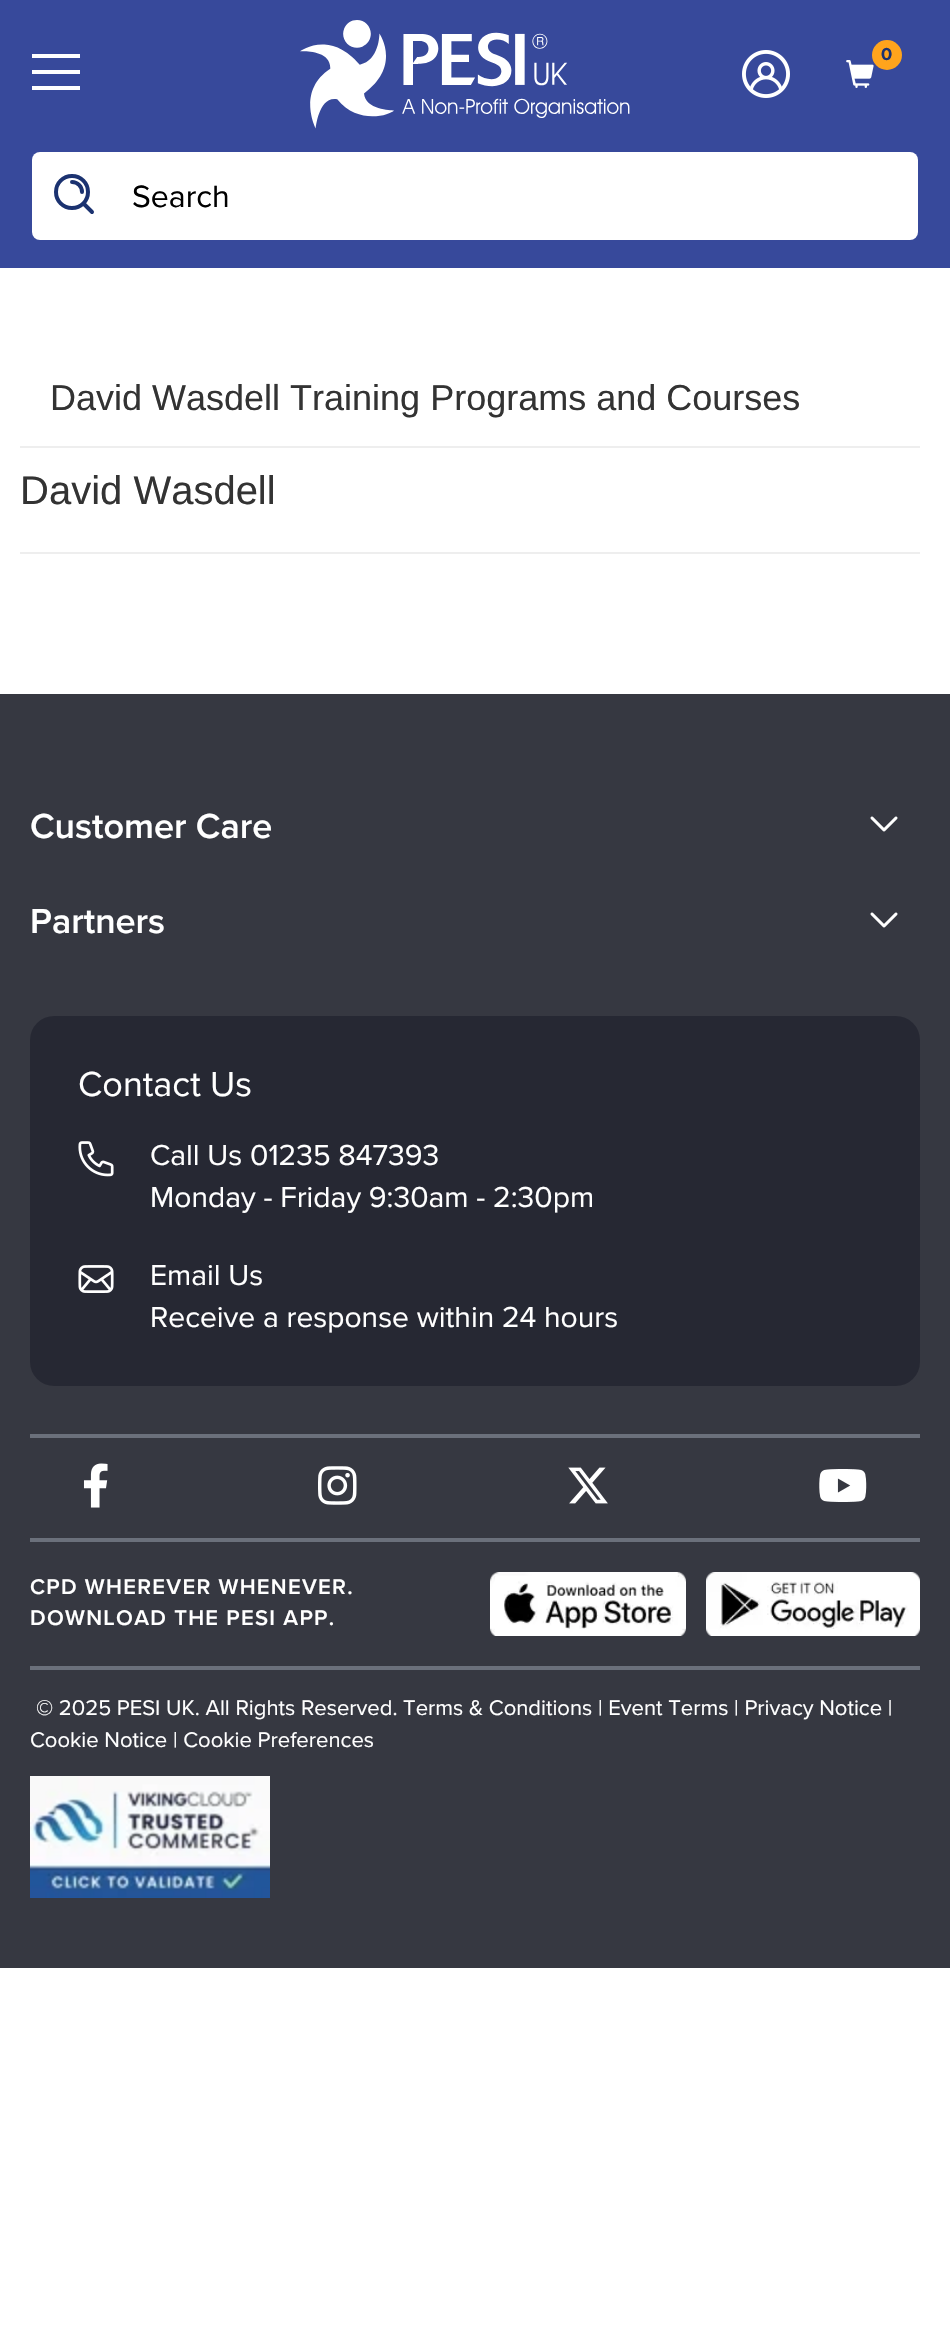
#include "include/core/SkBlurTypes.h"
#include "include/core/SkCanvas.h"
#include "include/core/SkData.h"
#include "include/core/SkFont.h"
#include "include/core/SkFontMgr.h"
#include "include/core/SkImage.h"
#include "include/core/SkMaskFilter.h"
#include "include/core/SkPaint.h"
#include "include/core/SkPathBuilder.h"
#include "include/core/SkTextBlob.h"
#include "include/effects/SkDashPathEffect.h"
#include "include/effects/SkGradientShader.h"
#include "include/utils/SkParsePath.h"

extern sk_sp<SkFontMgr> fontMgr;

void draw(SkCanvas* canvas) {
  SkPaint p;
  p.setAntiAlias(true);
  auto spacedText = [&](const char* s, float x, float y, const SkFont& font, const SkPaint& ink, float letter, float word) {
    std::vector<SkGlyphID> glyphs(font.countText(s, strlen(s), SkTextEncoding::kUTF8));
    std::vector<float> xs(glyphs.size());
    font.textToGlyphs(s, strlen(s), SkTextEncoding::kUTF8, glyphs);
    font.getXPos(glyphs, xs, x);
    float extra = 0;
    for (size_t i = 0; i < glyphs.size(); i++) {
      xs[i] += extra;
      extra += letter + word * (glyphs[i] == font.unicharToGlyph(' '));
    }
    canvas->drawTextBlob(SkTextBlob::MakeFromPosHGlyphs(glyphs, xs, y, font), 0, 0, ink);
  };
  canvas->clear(SK_ColorWHITE);
  p.setColor(SkColorSetRGB(55, 73, 155));
  canvas->drawRect(SkRect::MakeLTRB(0, 0, 950, 268), p);
  p.setColor(SK_ColorWHITE);
  canvas->drawRect(SkRect::MakeLTRB(32, 54, 80, 58), p);
  canvas->drawRect(SkRect::MakeLTRB(32, 70, 80, 74), p);
  canvas->drawRect(SkRect::MakeLTRB(32, 86, 80, 90), p);
  canvas->drawImageRect(SkImages::DeferredFromEncodedData(SkData::MakeFromFileName("images/1.png")), SkRect::MakeLTRB(300, 20, 630, 129), SkSamplingOptions());
  canvas->drawImageRect(SkImages::DeferredFromEncodedData(SkData::MakeFromFileName("images/2.png")), SkRect::MakeLTRB(742, 50, 790, 98), SkSamplingOptions());
  canvas->drawImageRect(SkImages::DeferredFromEncodedData(SkData::MakeFromFileName("images/3.png")), SkRect::MakeLTRB(846, 60, 874, 88), SkSamplingOptions());
  p.setColor(SkColorSetRGB(255, 164, 28));
  canvas->drawCircle(887, 55, 15, p);
  p.setColor(SK_ColorWHITE);
  canvas->drawRoundRect(SkRect::MakeLTRB(32, 152, 918, 240), 8, 8, p);
  p.setStyle(SkPaint::kStroke_Style);
  p.setStrokeWidth(4);
  p.setStrokeCap(SkPaint::kRound_Cap);
  p.setStrokeJoin(SkPaint::kRound_Join);
  p.setColor(SkColorSetRGB(27, 50, 112));
  canvas->drawPath(SkPathBuilder().moveTo(72, 182).cubicTo(77.5f, 182, 82, 186.5f, 82, 192).moveTo(83.5f, 203.5f).lineTo(92, 212).moveTo(88, 192).cubicTo(88, 201, 81, 208, 72, 208).cubicTo(63, 208, 56, 201, 56, 192).cubicTo(56, 183, 63, 176, 72, 176).cubicTo(81, 176, 88, 183, 88, 192).close().detach(), p);
  p.setStyle(SkPaint::kFill_Style);
  p.setColor(SkColorSetRGB(238, 238, 238));
  canvas->drawRect(SkRect::MakeLTRB(20, 446, 920, 448), p);
  canvas->drawRect(SkRect::MakeLTRB(20, 552, 920, 554), p);
  p.setColor(SkColorSetRGB(54, 56, 65));
  canvas->drawRect(SkRect::MakeLTRB(0, 694, 950, 1968), p);
  canvas->drawImageRect(SkImages::DeferredFromEncodedData(SkData::MakeFromFileName("images/4.png")), SkRect::MakeLTRB(870, 816, 898, 832), SkSamplingOptions());
  canvas->drawImageRect(SkImages::DeferredFromEncodedData(SkData::MakeFromFileName("images/4.png")), SkRect::MakeLTRB(870, 912, 898, 928), SkSamplingOptions());
  p.setColor(SkColorSetRGB(38, 40, 51));
  canvas->drawRoundRect(SkRect::MakeLTRB(30, 1016, 920, 1386), 24, 24, p);
  canvas->drawImageRect(SkImages::DeferredFromEncodedData(SkData::MakeFromFileName("images/5.png")), SkRect::MakeLTRB(78, 1141, 114, 1177), SkSamplingOptions());
  canvas->drawImageRect(SkImages::DeferredFromEncodedData(SkData::MakeFromFileName("images/6.png")), SkRect::MakeLTRB(78, 1265, 114, 1293), SkSamplingOptions());
  p.setColor(SkColorSetRGB(107, 112, 123));
  canvas->drawRect(SkRect::MakeLTRB(30, 1434, 920, 1438), p);
  canvas->drawRect(SkRect::MakeLTRB(30, 1538, 920, 1542), p);
  canvas->drawImageRect(SkImages::DeferredFromEncodedData(SkData::MakeFromFileName("images/7.png")), SkRect::MakeLTRB(83, 1463, 108, 1508), SkSamplingOptions());
  canvas->drawImageRect(SkImages::DeferredFromEncodedData(SkData::MakeFromFileName("images/8.png")), SkRect::MakeLTRB(318, 1466, 357, 1505), SkSamplingOptions());
  canvas->drawImageRect(SkImages::DeferredFromEncodedData(SkData::MakeFromFileName("images/9.png")), SkRect::MakeLTRB(568, 1467, 608, 1504), SkSamplingOptions());
  canvas->drawImageRect(SkImages::DeferredFromEncodedData(SkData::MakeFromFileName("images/10.png")), SkRect::MakeLTRB(819, 1469, 867, 1502), SkSamplingOptions());
  canvas->drawImageRect(SkImages::DeferredFromEncodedData(SkData::MakeFromFileName("images/11.png")), SkRect::MakeLTRB(490, 1572, 686, 1636), SkSamplingOptions());
  canvas->drawImageRect(SkImages::DeferredFromEncodedData(SkData::MakeFromFileName("images/12.png")), SkRect::MakeLTRB(706, 1572, 920, 1636), SkSamplingOptions());
  canvas->drawRect(SkRect::MakeLTRB(30, 1666, 920, 1670), p);
  canvas->drawImageRect(SkImages::DeferredFromEncodedData(SkData::MakeFromFileName("images/13.png")), SkRect::MakeLTRB(30, 1776, 270, 1898), SkSamplingOptions());
  SkFont font1(fontMgr->matchFamilyStyle("Proxima Nova", SkFontStyle::Bold()), 18);
  font1.setSubpixel(true);
  p.setColor(SkColorSetRGB(27, 50, 112));
  canvas->drawString("0", 881, 60, font1, p);
  SkFont font2(fontMgr->matchFamilyStyle("Proxima Nova", SkFontStyle::Normal()), 32);
  font2.setSubpixel(true);
  p.setColor(SK_ColorBLACK);
  canvas->drawString("Search", 132, 207, font2, p);
  SkFont font3(fontMgr->matchFamilyStyle("Liberation Sans", SkFontStyle::Normal()), 36);
  font3.setSubpixel(true);
  p.setColor(SkColorSetRGB(51, 51, 51));
  canvas->drawString("David Wasdell Training Programs and Courses", 50, 410, font3, p);
  SkFont font4(fontMgr->matchFamilyStyle("Liberation Sans", SkFontStyle::Normal()), 40);
  font4.setSubpixel(true);
  canvas->drawString("David Wasdell", 20, 504, font4, p);
  SkFont font5(fontMgr->matchFamilyStyle("Proxima Nova", SkFontStyle(600, SkFontStyle::kNormal_Width, SkFontStyle::kUpright_Slant)), 36);
  font5.setSubpixel(true);
  p.setColor(SK_ColorWHITE);
  canvas->drawString("Customer Care", 30, 838, font5, p);
  canvas->drawString("Partners", 30, 933, font5, p);
  SkFont font6(fontMgr->matchFamilyStyle("Proxima Nova", SkFontStyle::Normal()), 36);
  font6.setSubpixel(true);
  canvas->drawString("Contact Us", 78, 1096, font6, p);
  SkFont font7(fontMgr->matchFamilyStyle("Proxima Nova", SkFontStyle::Normal()), 30);
  font7.setSubpixel(true);
  canvas->drawString("Call Us 01235 847393", 150, 1165, font7, p);
  canvas->drawString("Monday - Friday 9:30am - 2:30pm", 150, 1207, font7, p);
  canvas->drawString("Email Us", 150, 1285, font7, p);
  canvas->drawString("Receive a response within 24 hours", 150, 1327, font7, p);
  SkFont font8(fontMgr->matchFamilyStyle("Proxima Nova", SkFontStyle(600, SkFontStyle::kNormal_Width, SkFontStyle::kUpright_Slant)), 22);
  font8.setSubpixel(true);
  spacedText("CPD WHEREVER WHENEVER.", 30, 1594, font8, p, 1.3f, 0);
  spacedText("DOWNLOAD THE PESI APP.", 30, 1625, font8, p, 1.3f, 0);
  SkFont font9(fontMgr->matchFamilyStyle("Proxima Nova", SkFontStyle::Normal()), 22);
  font9.setSubpixel(true);
  canvas->drawString("© 2025 PESI UK. All Rights Reserved. Terms & Conditions | Event Terms | Privacy Notice |", 36, 1715, font9, p);
  canvas->drawString("Cookie Notice | Cookie Preferences", 30, 1747, font9, p);
}
